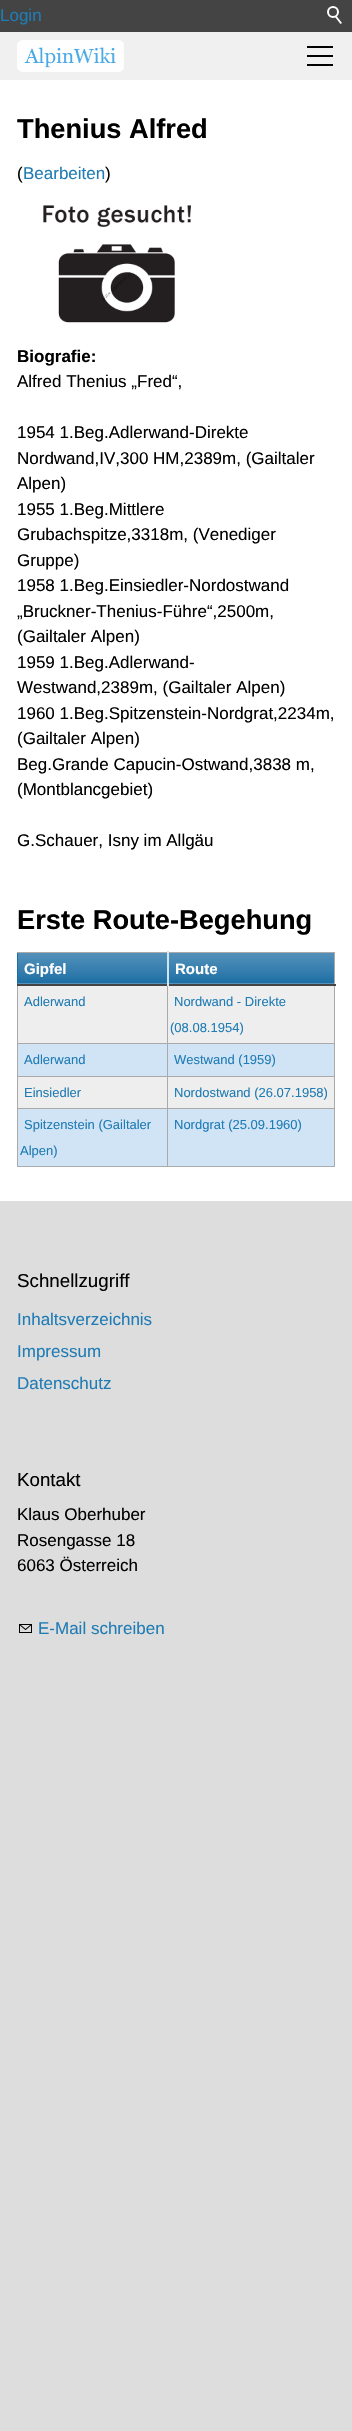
#include "include/core/SkBlurTypes.h"
#include "include/core/SkCanvas.h"
#include "include/core/SkData.h"
#include "include/core/SkFont.h"
#include "include/core/SkFontMgr.h"
#include "include/core/SkImage.h"
#include "include/core/SkMaskFilter.h"
#include "include/core/SkPaint.h"
#include "include/core/SkPathBuilder.h"
#include "include/core/SkTextBlob.h"
#include "include/effects/SkDashPathEffect.h"
#include "include/effects/SkGradientShader.h"
#include "include/utils/SkParsePath.h"

extern sk_sp<SkFontMgr> fontMgr;

void draw(SkCanvas* canvas) {
  SkPaint p;
  p.setAntiAlias(true);
  canvas->clear(SkColorSetRGB(221, 221, 221));
  p.setColor(SkColorSetRGB(240, 240, 240));
  canvas->drawRect(SkRect::MakeLTRB(0, 32, 352, 80), p);
  p.setColor(SkColorSetRGB(68, 68, 68));
  canvas->drawRect(SkRect::MakeLTRB(0, 0, 352, 32), p);
  p.setStyle(SkPaint::kStroke_Style);
  p.setStrokeWidth(2);
  p.setColor(SK_ColorWHITE);
  canvas->drawCircle(333, 12, 5, p);
  p.setStyle(SkPaint::kFill_Style);
  canvas->drawPath(SkPathBuilder().moveTo(336.5f, 16).lineTo(342, 23).lineTo(340.5f, 24).lineTo(335, 17).close().detach(), p);
  canvas->drawImageRect(SkImages::DeferredFromEncodedData(SkData::MakeFromFileName("images/1.png")), SkRect::MakeLTRB(17, 40, 124, 72), SkSamplingOptions());
  p.setColor(SK_ColorBLACK);
  canvas->drawRect(SkRect::MakeLTRB(307, 46, 333, 48), p);
  canvas->drawRect(SkRect::MakeLTRB(307, 55, 333, 57), p);
  canvas->drawRect(SkRect::MakeLTRB(307, 64, 333, 66), p);
  p.setColor(SK_ColorWHITE);
  canvas->drawRect(SkRect::MakeLTRB(0, 80, 352, 1201), p);
  canvas->drawImageRect(SkImages::DeferredFromEncodedData(SkData::MakeFromFileName("images/2.png")), SkRect::MakeLTRB(43, 205, 191, 323), SkSamplingOptions());
  p.setColor(SkColorSetRGB(238, 238, 238));
  canvas->drawRect(SkRect::MakeLTRB(18, 986, 334, 1108), p);
  p.setColor(SkColorSetRGB(28, 110, 164));
  canvas->drawRect(SkRect::MakeLTRB(17, 952, 18, 984), p);
  {
    const SkColor colors[] = {SkColorSetRGB(85, 146, 187), SkColorSetRGB(50, 124, 173), SkColorSetRGB(28, 110, 164)};
    const float stops[] = {0, 0.66f, 1};
    const SkPoint ends[] = {{177, 952}, {177, 983}};
    p.setShader(SkGradientShader::MakeLinear(ends, colors, stops, 3, SkTileMode::kClamp));
    p.setAlpha(255);
  }
  canvas->drawRect(SkRect::MakeLTRB(18, 953, 334, 983), p);
  {
    const SkColor colors[] = {SkColorSetRGB(85, 146, 187), SkColorSetRGB(50, 124, 173), SkColorSetRGB(28, 110, 164)};
    const float stops[] = {0, 0.66f, 1};
    const SkPoint ends[] = {{177, 983}, {177, 1014}};
    p.setShader(SkGradientShader::MakeLinear(ends, colors, stops, 3, SkTileMode::kClamp));
    p.setAlpha(255);
  }
  canvas->drawRect(SkRect::MakeLTRB(18, 983, 335, 984), p);
  p.setShader(nullptr);
  p.setColor(SkColorSetRGB(170, 170, 170));
  canvas->drawRect(SkRect::MakeLTRB(17, 952, 335, 953), p);
  canvas->drawRect(SkRect::MakeLTRB(167, 1043, 335, 1044), p);
  canvas->drawRect(SkRect::MakeLTRB(167, 1076, 335, 1077), p);
  canvas->drawRect(SkRect::MakeLTRB(167, 1108, 335, 1109), p);
  canvas->drawRect(SkRect::MakeLTRB(334, 1108, 335, 1167), p);
  canvas->drawRect(SkRect::MakeLTRB(334, 1076, 335, 1109), p);
  canvas->drawRect(SkRect::MakeLTRB(334, 985, 335, 1077), p);
  canvas->drawRect(SkRect::MakeLTRB(334, 952, 335, 986), p);
  p.setColor(SkColorSetRGB(208, 228, 245));
  canvas->drawRect(SkRect::MakeLTRB(18, 1044, 334, 1076), p);
  canvas->drawRect(SkRect::MakeLTRB(18, 1109, 334, 1166), p);
  p.setColor(SkColorSetRGB(170, 170, 170));
  canvas->drawRect(SkRect::MakeLTRB(167, 1166, 335, 1167), p);
  canvas->drawRect(SkRect::MakeLTRB(167, 1108, 168, 1167), p);
  canvas->drawRect(SkRect::MakeLTRB(17, 1108, 168, 1109), p);
  canvas->drawRect(SkRect::MakeLTRB(167, 1076, 168, 1109), p);
  canvas->drawRect(SkRect::MakeLTRB(17, 1076, 168, 1077), p);
  canvas->drawRect(SkRect::MakeLTRB(167, 1043, 168, 1077), p);
  canvas->drawRect(SkRect::MakeLTRB(17, 1043, 168, 1044), p);
  canvas->drawRect(SkRect::MakeLTRB(167, 985, 168, 1044), p);
  canvas->drawRect(SkRect::MakeLTRB(17, 1166, 168, 1167), p);
  canvas->drawRect(SkRect::MakeLTRB(17, 1108, 18, 1167), p);
  canvas->drawRect(SkRect::MakeLTRB(17, 1076, 18, 1109), p);
  canvas->drawRect(SkRect::MakeLTRB(17, 985, 18, 1077), p);
  p.setColor(SkColorSetRGB(68, 68, 68));
  canvas->drawRect(SkRect::MakeLTRB(17, 984, 336, 986), p);
  p.setColor(SkColorSetRGB(208, 228, 245));
  canvas->drawRect(SkRect::MakeLTRB(167, 951, 169, 986), p);
  canvas->drawImageRect(SkImages::DeferredFromEncodedData(SkData::MakeFromFileName("images/3.png")), SkRect::MakeLTRB(19, 1624, 32, 1633), SkSamplingOptions());
  SkFont font1(fontMgr->matchFamilyStyle("Liberation Sans", SkFontStyle::Normal()), 17);
  font1.setSubpixel(true);
  p.setColor(SkColorSetRGB(32, 124, 181));
  canvas->drawString("Login", 0, 21, font1, p);
  SkFont font2(fontMgr->matchFamilyStyle("Liberation Sans", SkFontStyle::Bold()), 27.25f);
  font2.setSubpixel(true);
  p.setColor(SK_ColorBLACK);
  canvas->drawString("Thenius Alfred", 17, 138, font2, p);
  canvas->drawString("(", 17, 179, font1, p);
  p.setColor(SkColorSetRGB(32, 124, 181));
  canvas->drawString("Bearbeiten", 23, 179, font1, p);
  p.setColor(SK_ColorBLACK);
  canvas->drawString(")", 105, 179, font1, p);
  SkFont font3(fontMgr->matchFamilyStyle("Liberation Sans", SkFontStyle::Bold()), 17);
  font3.setSubpixel(true);
  canvas->drawString("Biografie:", 17, 362, font3, p);
  canvas->drawString("Alfred Thenius „Fred“,", 17, 387, font1, p);
  canvas->drawString("1954 1.Beg.Adlerwand-Direkte", 17, 438, font1, p);
  canvas->drawString("Nordwand,IV,300 HM,2389m, (Gailtaler", 17, 464, font1, p);
  canvas->drawString("Alpen)", 17, 489, font1, p);
  canvas->drawString("1955 1.Beg.Mittlere", 17, 515, font1, p);
  canvas->drawString("Grubachspitze,3318m, (Venediger", 17, 540, font1, p);
  canvas->drawString("Gruppe)", 17, 566, font1, p);
  canvas->drawString("1958 1.Beg.Einsiedler-Nordostwand", 17, 591, font1, p);
  canvas->drawString("„Bruckner-Thenius-Führe“,2500m,", 17, 617, font1, p);
  canvas->drawString("(Gailtaler Alpen)", 17, 642, font1, p);
  canvas->drawString("1959 1.Beg.Adlerwand-", 17, 668, font1, p);
  canvas->drawString("Westwand,2389m, (Gailtaler Alpen)", 17, 693, font1, p);
  canvas->drawString("1960 1.Beg.Spitzenstein-Nordgrat,2234m,", 17, 719, font1, p);
  canvas->drawString("(Gailtaler Alpen)", 17, 744, font1, p);
  canvas->drawString("Beg.Grande Capucin-Ostwand,3838 m,", 17, 770, font1, p);
  canvas->drawString("(Montblancgebiet)", 17, 795, font1, p);
  canvas->drawString("G.Schauer, Isny im Allgäu", 17, 846, font1, p);
  canvas->drawString("Erste Route-Begehung", 17, 929, font2, p);
  SkFont font4(fontMgr->matchFamilyStyle("Liberation Sans", SkFontStyle::Bold()), 15);
  font4.setSubpixel(true);
  p.setColor(SK_ColorWHITE);
  canvas->drawString("Gipfel", 24, 974, font4, p);
  canvas->drawString("Route", 175, 974, font4, p);
  SkFont font5(fontMgr->matchFamilyStyle("Liberation Sans", SkFontStyle::Normal()), 13);
  font5.setSubpixel(true);
  p.setColor(SkColorSetRGB(32, 124, 181));
  canvas->drawString("Adlerwand", 24, 1006, font5, p);
  canvas->drawString("Nordwand - Direkte", 174, 1006, font5, p);
  canvas->drawString("(08.08.1954)", 170, 1032, font5, p);
  canvas->drawString("Adlerwand", 24, 1064, font5, p);
  canvas->drawString("Westwand (1959)", 174, 1064, font5, p);
  canvas->drawString("Einsiedler", 24, 1097, font5, p);
  canvas->drawString("Nordostwand (26.07.1958)", 174, 1097, font5, p);
  canvas->drawString("Spitzenstein (Gailtaler", 24, 1129, font5, p);
  canvas->drawString("Alpen)", 20, 1155, font5, p);
  canvas->drawString("Nordgrat (25.09.1960)", 174, 1129, font5, p);
  SkFont font6(fontMgr->matchFamilyStyle("Liberation Sans", SkFontStyle::Normal()), 18.75f);
  font6.setSubpixel(true);
  p.setColor(SK_ColorBLACK);
  canvas->drawString("Schnellzugriff", 17, 1287, font6, p);
  p.setColor(SkColorSetRGB(32, 124, 181));
  canvas->drawString("Inhaltsverzeichnis", 17, 1325, font1, p);
  canvas->drawString("Impressum", 17, 1357, font1, p);
  canvas->drawString("Datenschutz", 17, 1389, font1, p);
  p.setColor(SK_ColorBLACK);
  canvas->drawString("Kontakt", 17, 1486, font6, p);
  canvas->drawString("Klaus Oberhuber", 17, 1520, font1, p);
  canvas->drawString("Rosengasse 18", 17, 1546, font1, p);
  canvas->drawString("6063 Österreich", 17, 1571, font1, p);
  p.setColor(SkColorSetRGB(32, 124, 181));
  canvas->drawString("E-Mail schreiben", 38, 1634, font1, p);
}
